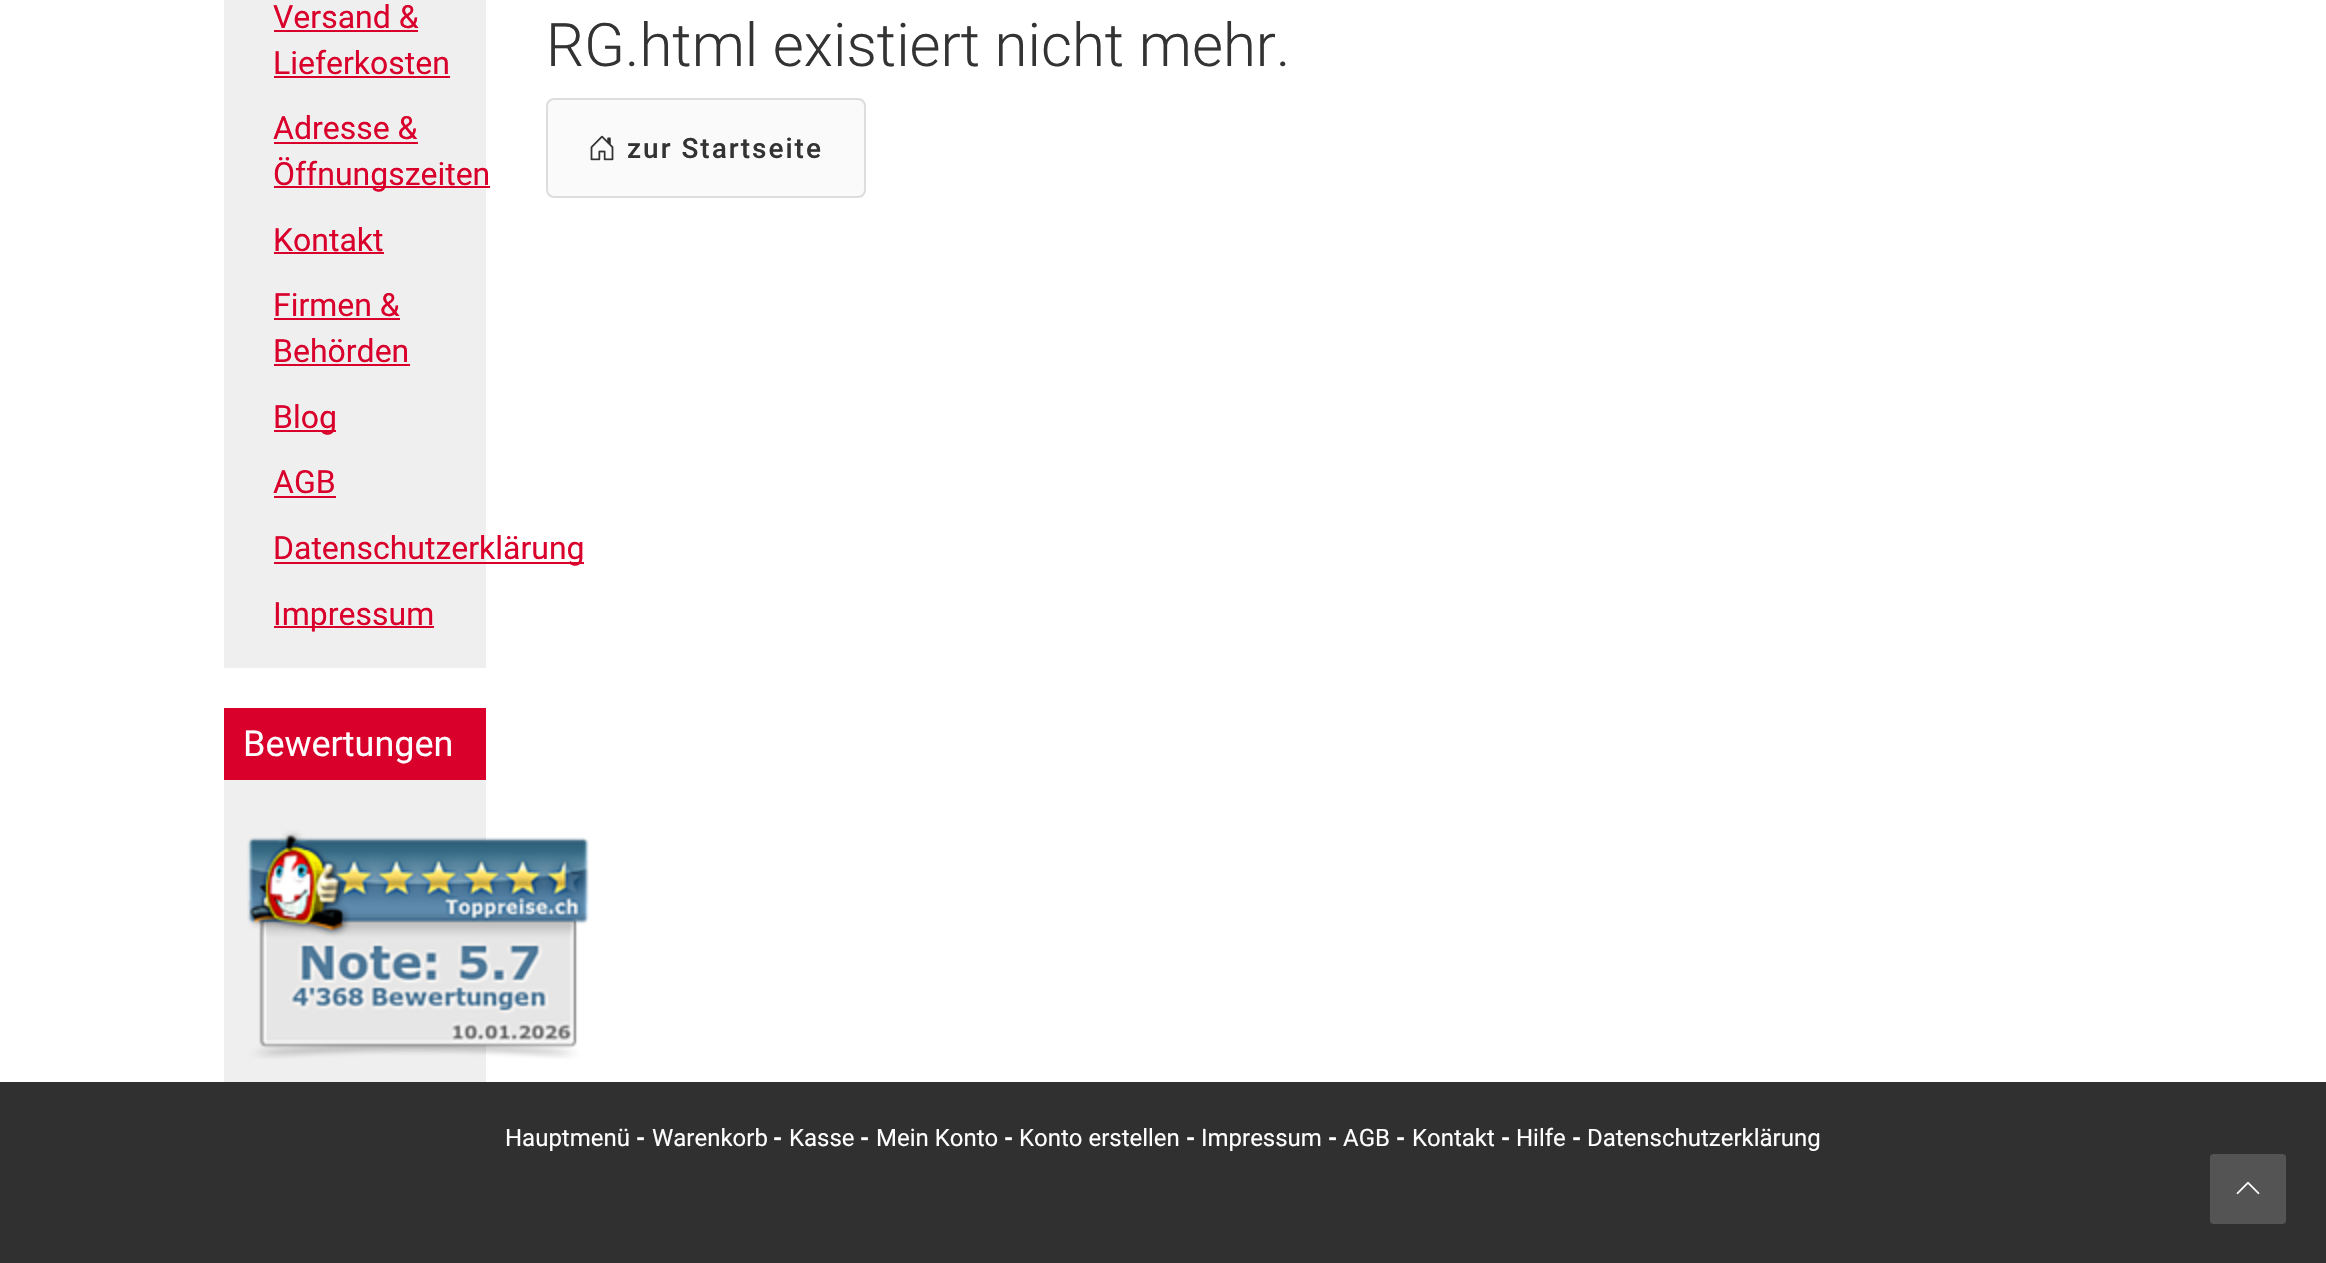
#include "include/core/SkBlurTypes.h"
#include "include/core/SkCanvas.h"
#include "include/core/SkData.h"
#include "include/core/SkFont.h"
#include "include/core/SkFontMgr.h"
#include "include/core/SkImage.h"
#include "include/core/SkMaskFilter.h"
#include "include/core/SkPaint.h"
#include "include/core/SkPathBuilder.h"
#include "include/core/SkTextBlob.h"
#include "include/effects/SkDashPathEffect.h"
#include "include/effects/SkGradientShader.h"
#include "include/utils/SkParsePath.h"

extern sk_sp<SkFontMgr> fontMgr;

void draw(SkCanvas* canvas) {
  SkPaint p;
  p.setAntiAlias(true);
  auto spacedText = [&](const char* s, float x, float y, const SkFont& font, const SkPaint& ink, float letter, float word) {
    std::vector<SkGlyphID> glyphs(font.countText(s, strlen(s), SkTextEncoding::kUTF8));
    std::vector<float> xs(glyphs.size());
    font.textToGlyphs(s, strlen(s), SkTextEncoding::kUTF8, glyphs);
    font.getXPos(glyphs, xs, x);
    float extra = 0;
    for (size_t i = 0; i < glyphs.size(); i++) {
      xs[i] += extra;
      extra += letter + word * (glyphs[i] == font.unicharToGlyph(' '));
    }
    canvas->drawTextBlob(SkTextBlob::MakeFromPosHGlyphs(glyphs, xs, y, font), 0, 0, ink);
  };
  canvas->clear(SK_ColorWHITE);
  p.setColor(SkColorSetRGB(239, 239, 239));
  canvas->drawRect(SkRect::MakeLTRB(224, 0, 486, 668), p);
  p.setColor(SkColorSetRGB(217, 0, 43));
  canvas->drawRect(SkRect::MakeLTRB(274, 30, 418, 32), p);
  canvas->drawRect(SkRect::MakeLTRB(274, 76, 450, 78), p);
  canvas->drawRect(SkRect::MakeLTRB(274, 142, 418, 144), p);
  canvas->drawRect(SkRect::MakeLTRB(274, 186, 490, 188), p);
  canvas->drawRect(SkRect::MakeLTRB(274, 252, 384, 254), p);
  canvas->drawRect(SkRect::MakeLTRB(274, 318, 400, 320), p);
  canvas->drawRect(SkRect::MakeLTRB(274, 364, 410, 366), p);
  canvas->drawRect(SkRect::MakeLTRB(274, 430, 336, 432), p);
  canvas->drawRect(SkRect::MakeLTRB(274, 496, 336, 498), p);
  canvas->drawRect(SkRect::MakeLTRB(274, 562, 584, 564), p);
  canvas->drawRect(SkRect::MakeLTRB(274, 626, 434, 628), p);
  canvas->drawRect(SkRect::MakeLTRB(224, 708, 486, 780), p);
  p.setColor(SkColorSetRGB(239, 239, 239));
  canvas->drawRect(SkRect::MakeLTRB(224, 780, 486, 1082), p);
  canvas->drawImageRect(SkImages::DeferredFromEncodedData(SkData::MakeFromFileName("images/1.png")), SkRect::MakeLTRB(247, 830, 589, 1059), SkSamplingOptions());
  p.setColor(SkColorSetRGB(250, 250, 250));
  canvas->drawRoundRect(SkRect::MakeLTRB(547, 99, 865, 197), 7, 7, p);
  p.setStyle(SkPaint::kStroke_Style);
  p.setStrokeWidth(2);
  p.setColor(SkColorSetRGB(221, 221, 221));
  canvas->drawRoundRect(SkRect::MakeLTRB(547, 99, 865, 197), 7, 7, p);
  canvas->drawImageRect(SkImages::DeferredFromEncodedData(SkData::MakeFromFileName("images/2.png")), SkRect::MakeLTRB(590, 135, 614, 161), SkSamplingOptions());
  p.setStyle(SkPaint::kFill_Style);
  p.setColor(SkColorSetRGB(49, 48, 48));
  canvas->drawRect(SkRect::MakeLTRB(0, 1082, 2326, 1263), p);
  p.setColor(SkColorSetRGB(85, 84, 84));
  canvas->drawRoundRect(SkRect::MakeLTRB(2210, 1154, 2286, 1224), 4, 4, p);
  canvas->drawImageRect(SkImages::DeferredFromEncodedData(SkData::MakeFromFileName("images/3.png")), SkRect::MakeLTRB(2236, 1181, 2260, 1195), SkSamplingOptions());
  SkFont font1(fontMgr->matchFamilyStyle("Roboto", SkFontStyle::Normal()), 32);
  font1.setSubpixel(true);
  p.setColor(SkColorSetRGB(217, 0, 43));
  canvas->drawString("Versand &", 273, 28, font1, p);
  canvas->drawString("Lieferkosten", 273, 74, font1, p);
  canvas->drawString("Adresse &", 273, 139, font1, p);
  canvas->drawString("Öffnungszeiten", 273, 185, font1, p);
  canvas->drawString("Kontakt", 273, 251, font1, p);
  canvas->drawString("Firmen &", 273, 316, font1, p);
  canvas->drawString("Behörden", 273, 362, font1, p);
  canvas->drawString("Blog", 273, 428, font1, p);
  canvas->drawString("AGB", 273, 493, font1, p);
  canvas->drawString("Datenschutzerklärung", 273, 559, font1, p);
  canvas->drawString("Impressum", 273, 625, font1, p);
  SkFont font2(fontMgr->matchFamilyStyle("Roboto", SkFontStyle::Normal()), 36);
  font2.setSubpixel(true);
  p.setColor(SK_ColorWHITE);
  canvas->drawString("Bewertungen", 243, 756, font2, p);
  SkFont font3(fontMgr->matchFamilyStyle("Roboto", SkFontStyle(300, SkFontStyle::kNormal_Width, SkFontStyle::kUpright_Slant)), 60);
  font3.setSubpixel(true);
  p.setColor(SkColorSetRGB(51, 51, 51));
  canvas->drawString("RG.html existiert nicht mehr.", 546, 66, font3, p);
  SkFont font4(fontMgr->matchFamilyStyle("Roboto", SkFontStyle(500, SkFontStyle::kNormal_Width, SkFontStyle::kUpright_Slant)), 28);
  font4.setSubpixel(true);
  spacedText("zur Startseite", 627, 158, font4, p, 2, 0);
  SkFont font5(fontMgr->matchFamilyStyle("Roboto", SkFontStyle::Normal()), 24);
  font5.setSubpixel(true);
  p.setColor(SK_ColorWHITE);
  canvas->drawString("Hauptmenü", 505, 1146, font5, p);
  SkFont font6(fontMgr->matchFamilyStyle("Roboto", SkFontStyle::Bold()), 24);
  font6.setSubpixel(true);
  canvas->drawString("-", 636, 1146, font6, p);
  canvas->drawString("Warenkorb", 652, 1146, font5, p);
  canvas->drawString("-", 773, 1146, font6, p);
  canvas->drawString("Kasse", 789, 1146, font5, p);
  canvas->drawString("-", 860, 1146, font6, p);
  canvas->drawString("Mein Konto", 876, 1146, font5, p);
  canvas->drawString("-", 1004, 1146, font6, p);
  canvas->drawString("Konto erstellen", 1019, 1146, font5, p);
  canvas->drawString("-", 1186, 1146, font6, p);
  canvas->drawString("Impressum", 1201, 1146, font5, p);
  canvas->drawString("-", 1328, 1146, font6, p);
  canvas->drawString("AGB", 1343, 1146, font5, p);
  canvas->drawString("-", 1396, 1146, font6, p);
  canvas->drawString("Kontakt", 1412, 1146, font5, p);
  canvas->drawString("-", 1501, 1146, font6, p);
  canvas->drawString("Hilfe", 1516, 1146, font5, p);
  canvas->drawString("-", 1572, 1146, font6, p);
  canvas->drawString("Datenschutzerklärung", 1587, 1146, font5, p);
}
